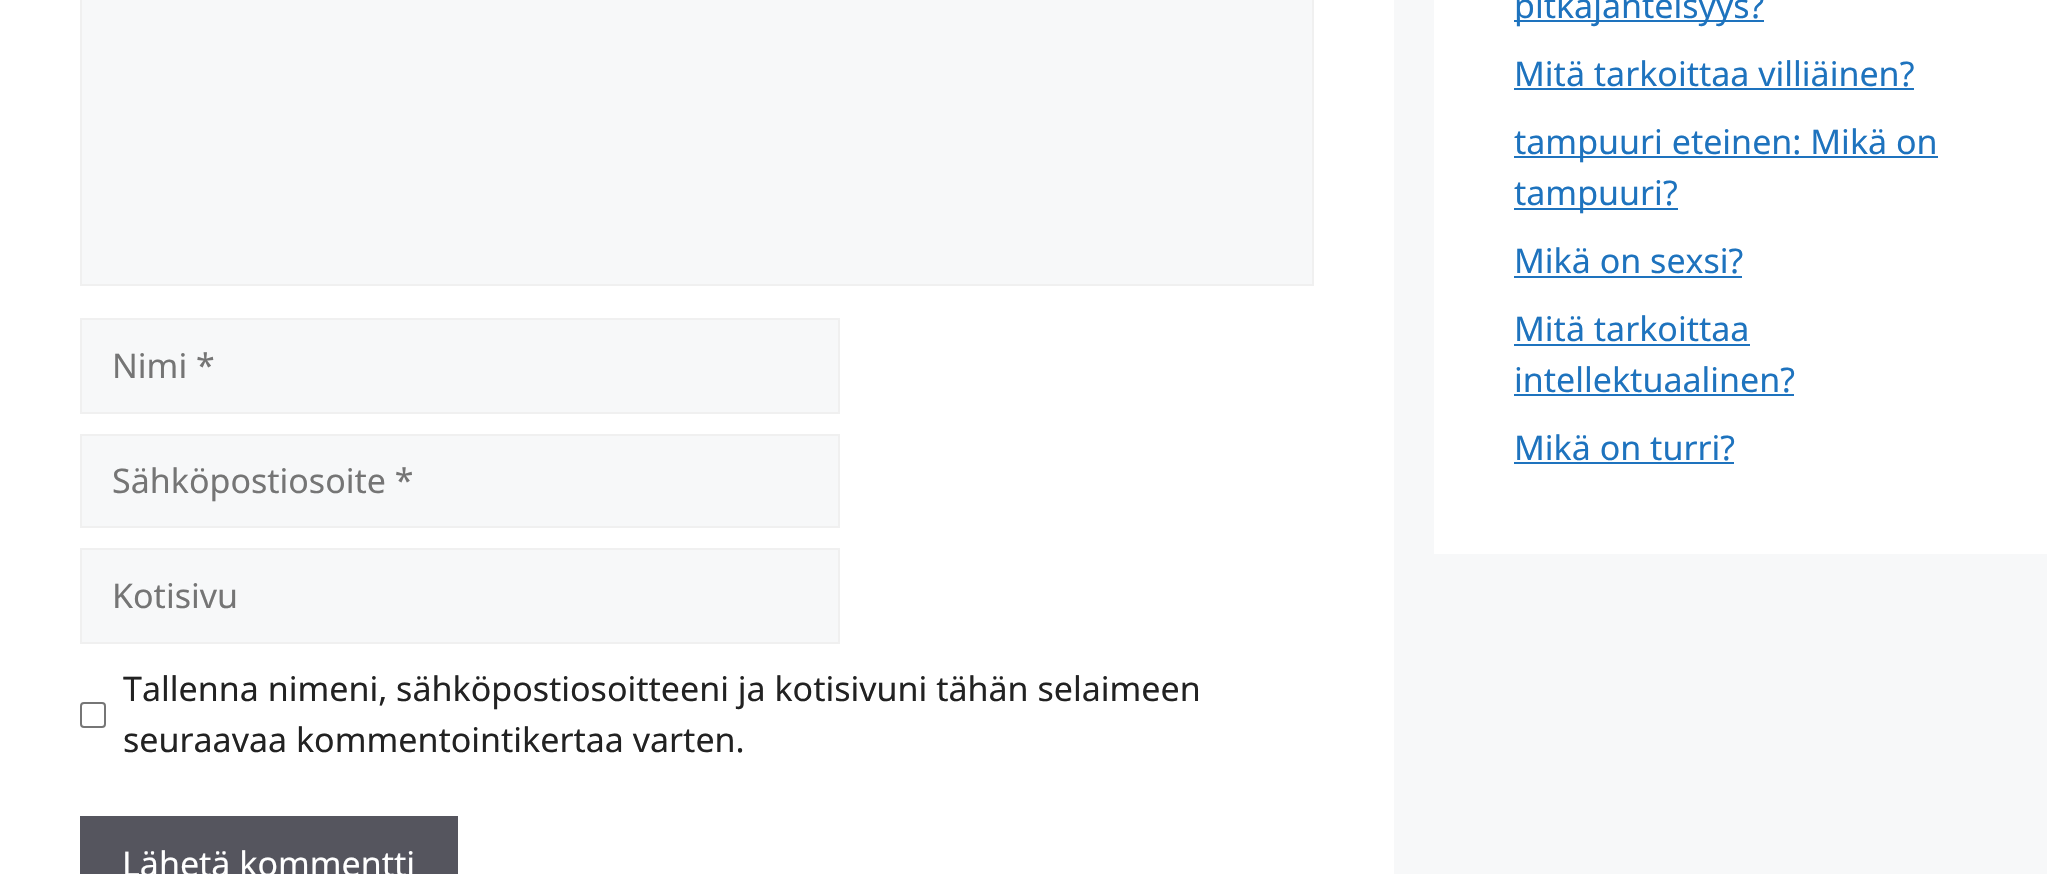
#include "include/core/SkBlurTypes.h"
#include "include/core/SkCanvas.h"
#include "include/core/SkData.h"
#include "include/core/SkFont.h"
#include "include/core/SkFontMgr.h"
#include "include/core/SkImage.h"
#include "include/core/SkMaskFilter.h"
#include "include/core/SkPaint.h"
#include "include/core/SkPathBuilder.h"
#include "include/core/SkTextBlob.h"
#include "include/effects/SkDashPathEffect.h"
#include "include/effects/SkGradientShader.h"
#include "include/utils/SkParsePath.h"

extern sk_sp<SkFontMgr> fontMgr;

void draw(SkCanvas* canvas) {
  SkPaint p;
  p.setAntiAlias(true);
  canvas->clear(SkColorSetRGB(247, 248, 249));
  p.setColor(SK_ColorWHITE);
  canvas->drawRect(SkRect::MakeLTRB(1434, 0, 2047, 554), p);
  p.setColor(SkColorSetRGB(30, 115, 190));
  canvas->drawRect(SkRect::MakeLTRB(1514, 20, 1764, 22), p);
  canvas->drawRect(SkRect::MakeLTRB(1514, 88, 1914, 90), p);
  canvas->drawRect(SkRect::MakeLTRB(1514, 156, 1938, 158), p);
  canvas->drawRect(SkRect::MakeLTRB(1514, 208, 1678, 210), p);
  canvas->drawRect(SkRect::MakeLTRB(1514, 276, 1742, 278), p);
  canvas->drawRect(SkRect::MakeLTRB(1514, 344, 1750, 346), p);
  canvas->drawRect(SkRect::MakeLTRB(1514, 394, 1794, 396), p);
  canvas->drawRect(SkRect::MakeLTRB(1514, 462, 1734, 464), p);
  p.setColor(SK_ColorWHITE);
  canvas->drawRect(SkRect::MakeLTRB(0, 0, 1394, 874), p);
  p.setColor(SkColorSetRGB(247, 248, 249));
  canvas->drawRect(SkRect::MakeLTRB(81, -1, 1313, 285), p);
  p.setStyle(SkPaint::kStroke_Style);
  p.setStrokeWidth(2);
  p.setColor(SkColorSetRGB(240, 240, 240));
  canvas->drawRect(SkRect::MakeLTRB(81, -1, 1313, 285), p);
  p.setStyle(SkPaint::kFill_Style);
  p.setColor(SkColorSetRGB(247, 248, 249));
  canvas->drawRect(SkRect::MakeLTRB(81, 319, 839, 413), p);
  p.setStyle(SkPaint::kStroke_Style);
  p.setColor(SkColorSetRGB(240, 240, 240));
  canvas->drawRect(SkRect::MakeLTRB(81, 319, 839, 413), p);
  p.setStyle(SkPaint::kFill_Style);
  p.setColor(SkColorSetRGB(247, 248, 249));
  canvas->drawRect(SkRect::MakeLTRB(81, 435, 839, 527), p);
  p.setStyle(SkPaint::kStroke_Style);
  p.setColor(SkColorSetRGB(240, 240, 240));
  canvas->drawRect(SkRect::MakeLTRB(81, 435, 839, 527), p);
  p.setStyle(SkPaint::kFill_Style);
  p.setColor(SkColorSetRGB(247, 248, 249));
  canvas->drawRect(SkRect::MakeLTRB(81, 549, 839, 643), p);
  p.setStyle(SkPaint::kStroke_Style);
  p.setColor(SkColorSetRGB(240, 240, 240));
  canvas->drawRect(SkRect::MakeLTRB(81, 549, 839, 643), p);
  p.setColor(SkColorSetRGB(118, 118, 118));
  canvas->drawRoundRect(SkRect::MakeLTRB(81, 703, 105, 727), 3, 3, p);
  p.setStyle(SkPaint::kFill_Style);
  p.setColor(SkColorSetRGB(85, 85, 94));
  canvas->drawRect(SkRect::MakeLTRB(80, 816, 458, 874), p);
  SkFont font1(fontMgr->matchFamilyStyle("Noto Sans", SkFontStyle::Normal()), 34);
  font1.setSubpixel(true);
  p.setColor(SkColorSetRGB(30, 115, 190));
  canvas->drawString("pitkäjänteisyys?", 1514, 18, font1, p);
  canvas->drawString("Mitä tarkoittaa villiäinen?", 1514, 86, font1, p);
  canvas->drawString("tampuuri eteinen: Mikä on", 1514, 154, font1, p);
  canvas->drawString("tampuuri?", 1514, 205, font1, p);
  canvas->drawString("Mikä on sexsi?", 1514, 273, font1, p);
  canvas->drawString("Mitä tarkoittaa", 1514, 341, font1, p);
  canvas->drawString("intellektuaalinen?", 1514, 392, font1, p);
  canvas->drawString("Mikä on turri?", 1514, 460, font1, p);
  p.setColor(SkColorSetRGB(117, 117, 117));
  canvas->drawString("Nimi *", 112, 378, font1, p);
  canvas->drawString("Sähköpostiosoite *", 112, 493, font1, p);
  canvas->drawString("Kotisivu", 112, 608, font1, p);
  p.setColor(SkColorSetRGB(34, 34, 34));
  canvas->drawString("Tallenna nimeni, sähköpostiosoitteeni ja kotisivuni tähän selaimeen", 123, 701, font1, p);
  canvas->drawString("seuraavaa kommentointikertaa varten.", 123, 752, font1, p);
  p.setColor(SK_ColorWHITE);
  canvas->drawString("Lähetä kommentti", 122, 876, font1, p);
}
